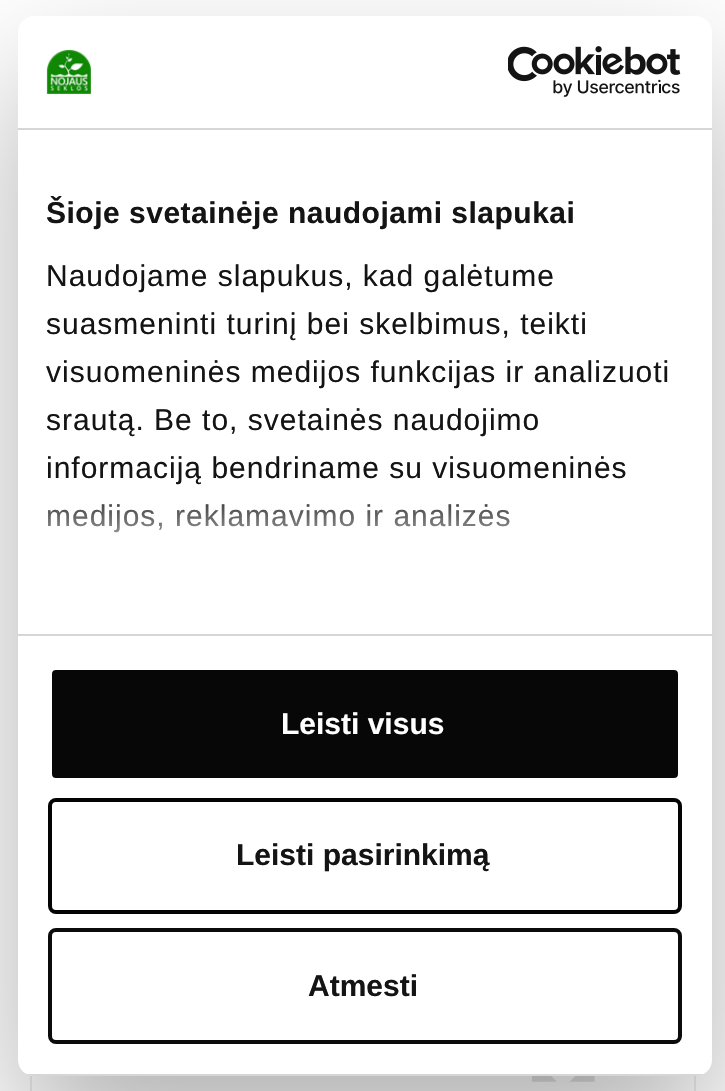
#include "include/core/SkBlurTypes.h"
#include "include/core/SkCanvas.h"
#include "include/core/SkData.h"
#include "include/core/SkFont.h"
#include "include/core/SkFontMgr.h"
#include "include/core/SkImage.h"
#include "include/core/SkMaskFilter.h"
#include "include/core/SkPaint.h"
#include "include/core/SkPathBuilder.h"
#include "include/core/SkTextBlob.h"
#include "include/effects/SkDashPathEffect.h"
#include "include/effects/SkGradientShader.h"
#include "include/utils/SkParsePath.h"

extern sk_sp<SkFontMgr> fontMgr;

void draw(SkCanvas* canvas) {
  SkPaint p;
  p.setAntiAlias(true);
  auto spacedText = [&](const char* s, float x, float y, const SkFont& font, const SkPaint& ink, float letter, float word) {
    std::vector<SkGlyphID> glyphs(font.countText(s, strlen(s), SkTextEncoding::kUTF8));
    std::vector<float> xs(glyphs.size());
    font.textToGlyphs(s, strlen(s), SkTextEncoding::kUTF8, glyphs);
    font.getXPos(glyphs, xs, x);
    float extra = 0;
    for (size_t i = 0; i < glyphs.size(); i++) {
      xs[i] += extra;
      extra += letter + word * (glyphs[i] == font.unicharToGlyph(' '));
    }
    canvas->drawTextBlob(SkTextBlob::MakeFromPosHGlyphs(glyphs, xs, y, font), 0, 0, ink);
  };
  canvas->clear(SK_ColorWHITE);
  p.setStyle(SkPaint::kStroke_Style);
  p.setStrokeWidth(2);
  p.setColor(SkColorSetRGB(237, 237, 237));
  canvas->drawRect(SkRect::MakeLTRB(31, 503, 695, 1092), p);
  canvas->drawImageRect(SkImages::DeferredFromEncodedData(SkData::MakeFromFileName("images/3.png")), SkRect::MakeLTRB(532, 1076, 595, 1082), SkSamplingOptions());
  p.setStyle(SkPaint::kFill_Style);
  p.setColor(SkColorSetARGB(77, 0, 0, 0));
  p.setMaskFilter(SkMaskFilter::MakeBlur(kNormal_SkBlurStyle, 68));
  canvas->drawRoundRect(SkRect::MakeLTRB(18, 80, 712, 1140), 16, 16, p);
  p.setMaskFilter(nullptr);
  p.setColor(SK_ColorWHITE);
  canvas->drawRoundRect(SkRect::MakeLTRB(18, 16, 712, 1076), 16, 16, p);
  p.setColor(SkColorSetRGB(214, 214, 214));
  canvas->drawRect(SkRect::MakeLTRB(18, 128, 712, 130), p);
  canvas->drawImageRect(SkImages::DeferredFromEncodedData(SkData::MakeFromFileName("images/1.png")), SkRect::MakeLTRB(46, 49, 91, 94), SkSamplingOptions());
  canvas->drawImageRect(SkImages::DeferredFromEncodedData(SkData::MakeFromFileName("images/2.png")), SkRect::MakeLTRB(508, 46, 681, 97), SkSamplingOptions());
  canvas->drawRect(SkRect::MakeLTRB(18, 634, 712, 636), p);
  canvas->save();
  canvas->clipPath(SkPathBuilder().moveTo(34, 16).lineTo(696, 16).cubicTo(705, 16, 712, 23, 712, 32).lineTo(712, 1060).cubicTo(712, 1069, 705, 1076, 696, 1076).lineTo(34, 1076).cubicTo(25, 1076, 18, 1069, 18, 1060).lineTo(18, 32).cubicTo(18, 23, 25, 16, 34, 16).close().detach(), true);
  canvas->drawRect(SkRect::MakeLTRB(18, 1074, 712, 1076), p);
  canvas->restore();
  p.setColor(SkColorSetRGB(7, 7, 7));
  canvas->drawRoundRect(SkRect::MakeLTRB(50, 668, 680, 780), 6, 6, p);
  p.setStyle(SkPaint::kStroke_Style);
  p.setStrokeWidth(4);
  p.setColor(SK_ColorWHITE);
  canvas->drawRoundRect(SkRect::MakeLTRB(50, 668, 680, 780), 6, 6, p);
  p.setColor(SkColorSetRGB(3, 3, 3));
  canvas->drawRoundRect(SkRect::MakeLTRB(50, 800, 680, 912), 6, 6, p);
  p.setColor(SkColorSetRGB(11, 11, 12));
  canvas->drawRoundRect(SkRect::MakeLTRB(50, 930, 680, 1042), 6, 6, p);
  SkFont font1(fontMgr->matchFamilyStyle("Liberation Sans", SkFontStyle::Bold()), 30);
  font1.setSubpixel(true);
  p.setStyle(SkPaint::kFill_Style);
  p.setColor(SkColorSetRGB(20, 20, 20));
  spacedText("Šioje svetainėje naudojami slapukai", 46, 223, font1, p, 0.5f, 0);
  SkFont font2(fontMgr->matchFamilyStyle("Liberation Sans", SkFontStyle::Normal()), 30);
  font2.setSubpixel(true);
  spacedText("Naudojame slapukus, kad galėtume", 46, 286, font2, p, 1, 0);
  spacedText("suasmeninti turinį bei skelbimus, teikti", 46, 334, font2, p, 1, 0);
  spacedText("visuomeninės medijos funkcijas ir analizuoti", 46, 382, font2, p, 1, 0);
  spacedText("srautą. Be to, svetainės naudojimo", 46, 430, font2, p, 1, 0);
  spacedText("informaciją bendriname su visuomeninės", 46, 478, font2, p, 1, 0);
  spacedText("medijos, reklamavimo ir analizės", 46, 526, font2, p, 1, 0);
  {
    const SkColor colors[] = {SK_ColorWHITE, SkColorSetARGB(204, 255, 255, 255), SkColorSetARGB(0, 255, 255, 255)};
    const float stops[] = {0, 0.5f, 1};
    const SkPoint ends[] = {{351, 634}, {351, 484}};
    p.setShader(SkGradientShader::MakeLinear(ends, colors, stops, 3, SkTileMode::kClamp));
    p.setAlpha(255);
  }
  canvas->drawRect(SkRect::MakeLTRB(48, 504, 510, 533), p);
  p.setShader(nullptr);
  p.setColor(SK_ColorWHITE);
  canvas->drawString("Leisti visus", 281, 734, font1, p);
  p.setColor(SkColorSetRGB(20, 20, 20));
  canvas->drawString("Leisti pasirinkimą", 236, 865, font1, p);
  canvas->drawString("Atmesti", 308, 996, font1, p);
}
